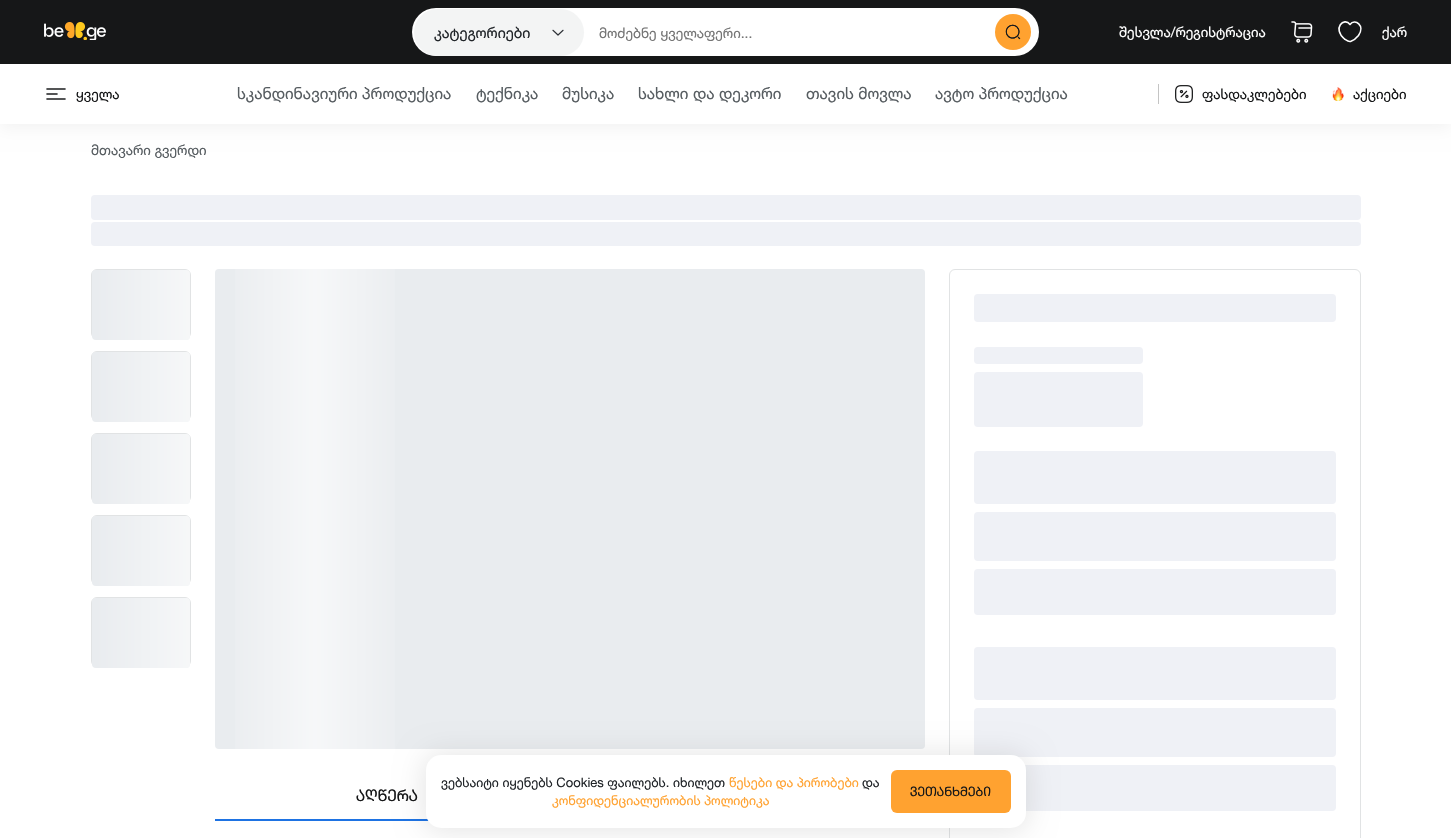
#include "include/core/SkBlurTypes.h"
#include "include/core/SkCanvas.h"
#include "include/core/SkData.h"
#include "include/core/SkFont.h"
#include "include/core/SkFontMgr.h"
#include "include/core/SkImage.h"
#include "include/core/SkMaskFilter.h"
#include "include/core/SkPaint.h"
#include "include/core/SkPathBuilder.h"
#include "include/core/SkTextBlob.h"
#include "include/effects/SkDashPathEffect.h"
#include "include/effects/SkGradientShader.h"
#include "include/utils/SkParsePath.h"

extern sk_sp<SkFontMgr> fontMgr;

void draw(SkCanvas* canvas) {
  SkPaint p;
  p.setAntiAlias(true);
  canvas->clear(SK_ColorWHITE);
  p.setColor(SkColorSetRGB(22, 23, 24));
  canvas->drawRect(SkRect::MakeLTRB(0, 0, 1451, 64), p);
  canvas->drawImageRect(SkImages::DeferredFromEncodedData(SkData::MakeFromFileName("images/1.png")), SkRect::MakeLTRB(44, 22, 106, 40), SkSamplingOptions());
  p.setColor(SkColorSetARGB(13, 0, 0, 0));
  p.setMaskFilter(SkMaskFilter::MakeBlur(kNormal_SkBlurStyle, 8));
  canvas->drawRect(SkRect::MakeLTRB(0, 68, 1451, 128), p);
  p.setMaskFilter(nullptr);
  p.setColor(SK_ColorWHITE);
  canvas->drawRoundRect(SkRect::MakeLTRB(412, 8, 1039, 56), 24, 24, p);
  p.setColor(SkColorSetRGB(243, 244, 244));
  canvas->drawRoundRect(SkRect::MakeLTRB(414, 9, 584, 56), 23.5f, 23.5f, p);
  canvas->drawImageRect(SkImages::DeferredFromEncodedData(SkData::MakeFromFileName("images/2.png")), SkRect::MakeLTRB(552, 29, 564, 36), SkSamplingOptions());
  p.setColor(SkColorSetRGB(255, 162, 48));
  canvas->drawCircle(1013, 32, 18, p);
  canvas->drawImageRect(SkImages::DeferredFromEncodedData(SkData::MakeFromFileName("images/3.png")), SkRect::MakeLTRB(1005, 24, 1021, 40), SkSamplingOptions());
  canvas->drawImageRect(SkImages::DeferredFromEncodedData(SkData::MakeFromFileName("images/4.png")), SkRect::MakeLTRB(1291, 21, 1313, 43), SkSamplingOptions());
  p.setStyle(SkPaint::kStroke_Style);
  p.setStrokeWidth(1.6f);
  p.setStrokeCap(SkPaint::kRound_Cap);
  p.setStrokeJoin(SkPaint::kRound_Join);
  p.setColor(SK_ColorWHITE);
  canvas->drawPath(SkPathBuilder().moveTo(1350.5f, 41.5f).cubicTo(1348.5f, 42, 1346, 40, 1344.5f, 39).cubicTo(1332, 28.5f, 1344, 16.5f, 1350, 24.5f).cubicTo(1355, 18, 1365.5f, 25.5f, 1358.5f, 35.5f).cubicTo(1356.5f, 38, 1353.5f, 40.5f, 1350.5f, 41.5f).close().detach(), p);
  p.setStyle(SkPaint::kFill_Style);
  canvas->drawRect(SkRect::MakeLTRB(0, 64, 1451, 124), p);
  canvas->drawImageRect(SkImages::DeferredFromEncodedData(SkData::MakeFromFileName("images/5.png")), SkRect::MakeLTRB(46, 88, 66, 100), SkSamplingOptions());
  p.setColor(SkColorSetRGB(196, 196, 196));
  canvas->drawRect(SkRect::MakeLTRB(1158, 84, 1159, 104), p);
  canvas->drawImageRect(SkImages::DeferredFromEncodedData(SkData::MakeFromFileName("images/6.png")), SkRect::MakeLTRB(1175, 85, 1193, 103), SkSamplingOptions());
  canvas->drawImageRect(SkImages::DeferredFromEncodedData(SkData::MakeFromFileName("images/7.png")), SkRect::MakeLTRB(1332, 87, 1344, 101), SkSamplingOptions());
  p.setColor(SkColorSetRGB(239, 241, 246));
  canvas->drawRoundRect(SkRect::MakeLTRB(91, 195, 1361, 220), 4, 4, p);
  canvas->drawRoundRect(SkRect::MakeLTRB(91, 222, 1361, 246), 4, 4, p);
  p.setStyle(SkPaint::kStroke_Style);
  p.setStrokeWidth(1);
  p.setStrokeCap(SkPaint::kButt_Cap);
  p.setStrokeJoin(SkPaint::kMiter_Join);
  p.setColor(SkColorSetRGB(225, 227, 228));
  canvas->drawRoundRect(SkRect::MakeLTRB(91.5f, 269.5f, 190.5f, 338.5f), 5.5f, 5.5f, p);
  p.setStyle(SkPaint::kFill_Style);
  p.setColor(SkColorSetRGB(233, 236, 239));
  canvas->drawRoundRect(SkRect::MakeLTRB(92, 270, 190, 340), 4, 4, p);
  {
    const SkColor colors[] = {SkColorSetARGB(0, 255, 255, 255), SkColorSetARGB(153, 255, 255, 255), SkColorSetARGB(0, 255, 255, 255)};
    const float stops[] = {0, 0.5f, 1};
    const SkPoint ends[] = {{92, 305}, {292, 305}};
    p.setShader(SkGradientShader::MakeLinear(ends, colors, stops, 3, SkTileMode::kClamp));
    p.setAlpha(255);
  }
  canvas->drawRoundRect(SkRect::MakeLTRB(92, 270, 190, 340), 4, 4, p);
  p.setStyle(SkPaint::kStroke_Style);
  p.setShader(nullptr);
  p.setColor(SkColorSetRGB(225, 227, 228));
  canvas->drawRoundRect(SkRect::MakeLTRB(91.5f, 351.5f, 190.5f, 420.5f), 5.5f, 5.5f, p);
  p.setStyle(SkPaint::kFill_Style);
  p.setColor(SkColorSetRGB(233, 236, 239));
  canvas->drawRoundRect(SkRect::MakeLTRB(92, 352, 190, 422), 4, 4, p);
  {
    const SkColor colors[] = {SkColorSetARGB(0, 255, 255, 255), SkColorSetARGB(153, 255, 255, 255), SkColorSetARGB(0, 255, 255, 255)};
    const float stops[] = {0, 0.5f, 1};
    const SkPoint ends[] = {{92, 387}, {292, 387}};
    p.setShader(SkGradientShader::MakeLinear(ends, colors, stops, 3, SkTileMode::kClamp));
    p.setAlpha(255);
  }
  canvas->drawRoundRect(SkRect::MakeLTRB(92, 352, 190, 422), 4, 4, p);
  p.setStyle(SkPaint::kStroke_Style);
  p.setShader(nullptr);
  p.setColor(SkColorSetRGB(225, 227, 228));
  canvas->drawRoundRect(SkRect::MakeLTRB(91.5f, 433.5f, 190.5f, 502.5f), 5.5f, 5.5f, p);
  p.setStyle(SkPaint::kFill_Style);
  p.setColor(SkColorSetRGB(233, 236, 239));
  canvas->drawRoundRect(SkRect::MakeLTRB(92, 434, 190, 504), 4, 4, p);
  {
    const SkColor colors[] = {SkColorSetARGB(0, 255, 255, 255), SkColorSetARGB(153, 255, 255, 255), SkColorSetARGB(0, 255, 255, 255)};
    const float stops[] = {0, 0.5f, 1};
    const SkPoint ends[] = {{92, 469}, {292, 469}};
    p.setShader(SkGradientShader::MakeLinear(ends, colors, stops, 3, SkTileMode::kClamp));
    p.setAlpha(255);
  }
  canvas->drawRoundRect(SkRect::MakeLTRB(92, 434, 190, 504), 4, 4, p);
  p.setStyle(SkPaint::kStroke_Style);
  p.setShader(nullptr);
  p.setColor(SkColorSetRGB(225, 227, 228));
  canvas->drawRoundRect(SkRect::MakeLTRB(91.5f, 515.5f, 190.5f, 584.5f), 5.5f, 5.5f, p);
  p.setStyle(SkPaint::kFill_Style);
  p.setColor(SkColorSetRGB(233, 236, 239));
  canvas->drawRoundRect(SkRect::MakeLTRB(92, 516, 190, 586), 4, 4, p);
  {
    const SkColor colors[] = {SkColorSetARGB(0, 255, 255, 255), SkColorSetARGB(153, 255, 255, 255), SkColorSetARGB(0, 255, 255, 255)};
    const float stops[] = {0, 0.5f, 1};
    const SkPoint ends[] = {{92, 551}, {292, 551}};
    p.setShader(SkGradientShader::MakeLinear(ends, colors, stops, 3, SkTileMode::kClamp));
    p.setAlpha(255);
  }
  canvas->drawRoundRect(SkRect::MakeLTRB(92, 516, 190, 586), 4, 4, p);
  p.setStyle(SkPaint::kStroke_Style);
  p.setShader(nullptr);
  p.setColor(SkColorSetRGB(225, 227, 228));
  canvas->drawRoundRect(SkRect::MakeLTRB(91.5f, 597.5f, 190.5f, 666.5f), 5.5f, 5.5f, p);
  p.setStyle(SkPaint::kFill_Style);
  p.setColor(SkColorSetRGB(233, 236, 239));
  canvas->drawRoundRect(SkRect::MakeLTRB(92, 598, 190, 668), 4, 4, p);
  {
    const SkColor colors[] = {SkColorSetARGB(0, 255, 255, 255), SkColorSetARGB(153, 255, 255, 255), SkColorSetARGB(0, 255, 255, 255)};
    const float stops[] = {0, 0.5f, 1};
    const SkPoint ends[] = {{92, 633}, {292, 633}};
    p.setShader(SkGradientShader::MakeLinear(ends, colors, stops, 3, SkTileMode::kClamp));
    p.setAlpha(255);
  }
  canvas->drawRoundRect(SkRect::MakeLTRB(92, 598, 190, 668), 4, 4, p);
  p.setShader(nullptr);
  p.setColor(SkColorSetRGB(233, 236, 239));
  canvas->drawRoundRect(SkRect::MakeLTRB(215, 269, 925, 749), 4, 4, p);
  {
    const SkColor colors[] = {SkColorSetARGB(0, 255, 255, 255), SkColorSetARGB(153, 255, 255, 255), SkColorSetARGB(0, 255, 255, 255)};
    const float stops[] = {0, 0.5f, 1};
    const SkPoint ends[] = {{215, 509}, {415, 509}};
    p.setShader(SkGradientShader::MakeLinear(ends, colors, stops, 3, SkTileMode::kClamp));
    p.setAlpha(255);
  }
  canvas->drawRect(SkRect::MakeLTRB(235, 269, 395, 749), p);
  p.setShader(nullptr);
  p.setColor(SkColorSetRGB(30, 115, 227));
  canvas->drawRect(SkRect::MakeLTRB(215, 819, 429, 821), p);
  p.setStyle(SkPaint::kStroke_Style);
  p.setColor(SkColorSetRGB(225, 227, 228));
  canvas->drawRoundRect(SkRect::MakeLTRB(949.5f, 269.5f, 1360.5f, 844.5f), 5.5f, 5.5f, p);
  p.setStyle(SkPaint::kFill_Style);
  p.setColor(SkColorSetRGB(239, 241, 246));
  canvas->drawRoundRect(SkRect::MakeLTRB(974, 294, 1336, 322), 4, 4, p);
  canvas->drawRoundRect(SkRect::MakeLTRB(974, 347, 1143, 364), 4, 4, p);
  canvas->drawRoundRect(SkRect::MakeLTRB(974, 372, 1143, 427), 4, 4, p);
  canvas->drawRoundRect(SkRect::MakeLTRB(974, 451, 1336, 504), 4, 4, p);
  canvas->drawRoundRect(SkRect::MakeLTRB(974, 512, 1336, 561), 4, 4, p);
  canvas->drawRoundRect(SkRect::MakeLTRB(974, 569, 1336, 615), 4, 4, p);
  canvas->drawRoundRect(SkRect::MakeLTRB(974, 647, 1336, 700), 4, 4, p);
  canvas->drawRoundRect(SkRect::MakeLTRB(974, 708, 1336, 757), 4, 4, p);
  canvas->drawRoundRect(SkRect::MakeLTRB(974, 765, 1336, 811), 4, 4, p);
  p.setColor(SkColorSetARGB(26, 0, 0, 0));
  p.setMaskFilter(SkMaskFilter::MakeBlur(kNormal_SkBlurStyle, 14));
  canvas->drawRoundRect(SkRect::MakeLTRB(424, 754, 1028, 831), 17, 17, p);
  p.setMaskFilter(nullptr);
  p.setColor(SK_ColorWHITE);
  canvas->drawRoundRect(SkRect::MakeLTRB(426, 755, 1026, 828), 15, 15, p);
  p.setColor(SkColorSetRGB(255, 162, 48));
  canvas->drawRoundRect(SkRect::MakeLTRB(891, 770, 1011, 813), 6, 6, p);
  SkFont font1(fontMgr->matchFamilyStyle("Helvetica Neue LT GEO", SkFontStyle::Normal()), 15);
  font1.setSubpixel(true);
  p.setColor(SkColorSetRGB(33, 37, 41));
  canvas->drawString("კატეგორიები", 434, 38, font1, p);
  SkFont font2(fontMgr->matchFamilyStyle("Helvetica Neue LT GEO", SkFontStyle::Normal()), 14);
  font2.setSubpixel(true);
  p.setColor(SkColorSetRGB(117, 117, 117));
  canvas->drawString("მოძებნე ყველაფერი...", 599, 38, font2, p);
  p.setColor(SK_ColorWHITE);
  canvas->drawString("შესვლა/რეგისტრაცია", 1119, 37, font2, p);
  canvas->drawString("ქარ", 1382, 37, font2, p);
  p.setColor(SkColorSetRGB(22, 23, 24));
  canvas->drawString("ყველა", 76, 99, font2, p);
  SkFont font3(fontMgr->matchFamilyStyle("Helvetica Neue LT GEO", SkFontStyle::Normal()), 16);
  font3.setSubpixel(true);
  p.setColor(SkColorSetRGB(87, 93, 97));
  canvas->drawString("სკანდინავიური პროდუქცია", 237, 99, font3, p);
  canvas->drawString("ტექნიკა", 476, 99, font3, p);
  canvas->drawString("მუსიკა", 562, 99, font3, p);
  canvas->drawString("სახლი და დეკორი", 638, 99, font3, p);
  canvas->drawString("თავის მოვლა", 806, 99, font3, p);
  canvas->drawString("ავტო პროდუქცია", 935, 99, font3, p);
  p.setColor(SkColorSetRGB(22, 23, 24));
  canvas->drawString("ფასდაკლებები", 1202, 99, font2, p);
  canvas->drawString("აქციები", 1353, 99, font2, p);
  p.setColor(SkColorSetRGB(87, 93, 97));
  canvas->drawString("მთავარი გვერდი", 91, 155, font2, p);
  SkFont font4(fontMgr->matchFamilyStyle("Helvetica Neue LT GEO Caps", SkFontStyle::Normal()), 16);
  font4.setSubpixel(true);
  p.setColor(SkColorSetRGB(22, 23, 24));
  canvas->drawString("აღწერა", 356, 801, font4, p);
  SkFont font5(fontMgr->matchFamilyStyle("Helvetica Neue LT GEO", SkFontStyle::Normal()), 13);
  font5.setSubpixel(true);
  p.setColor(SkColorSetRGB(33, 37, 41));
  canvas->drawString("ვებსაიტი იყენებს Cookies ფაილებს. იხილეთ", 441, 787, font5, p);
  p.setColor(SkColorSetRGB(255, 162, 48));
  canvas->drawString("წესები და პირობები", 729, 787, font5, p);
  p.setColor(SkColorSetRGB(33, 37, 41));
  canvas->drawString("და", 862, 787, font5, p);
  p.setColor(SkColorSetRGB(255, 162, 48));
  canvas->drawString("კონფიდენციალურობის პოლიტიკა", 552, 805, font5, p);
  SkFont font6(fontMgr->matchFamilyStyle("Helvetica Neue LT GEO Caps", SkFontStyle::Normal()), 13);
  font6.setSubpixel(true);
  p.setColor(SkColorSetRGB(22, 23, 24));
  canvas->drawString("ვეთანხმები", 910, 796, font6, p);
}
